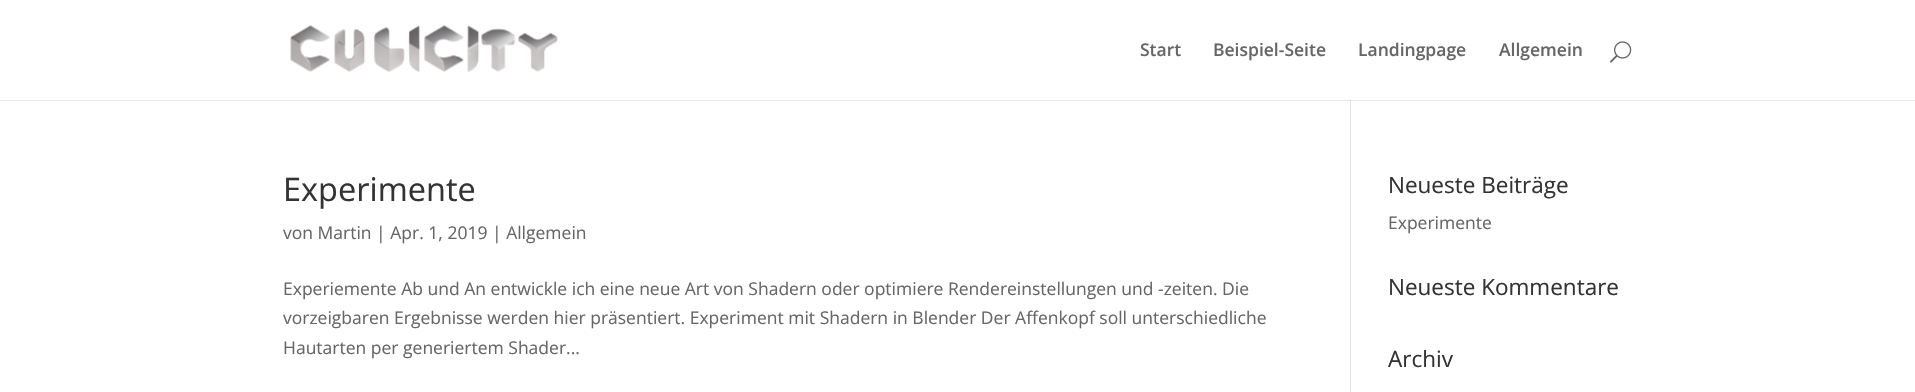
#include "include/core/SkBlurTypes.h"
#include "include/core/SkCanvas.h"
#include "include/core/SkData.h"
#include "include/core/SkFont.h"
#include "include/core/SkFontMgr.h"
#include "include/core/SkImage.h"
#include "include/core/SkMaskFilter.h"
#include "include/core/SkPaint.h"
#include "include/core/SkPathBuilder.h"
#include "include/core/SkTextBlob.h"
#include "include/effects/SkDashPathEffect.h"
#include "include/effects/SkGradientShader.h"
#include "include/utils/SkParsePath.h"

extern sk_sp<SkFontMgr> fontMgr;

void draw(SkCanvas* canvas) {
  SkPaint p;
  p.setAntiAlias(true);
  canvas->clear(SK_ColorWHITE);
  p.setColor(SkColorSetRGB(230, 230, 230));
  canvas->drawRect(SkRect::MakeLTRB(0, 100, 1915, 101), p);
  canvas->drawImageRect(SkImages::DeferredFromEncodedData(SkData::MakeFromFileName("images/1.png")), SkRect::MakeLTRB(290, 25, 558, 72), SkSamplingOptions());
  canvas->drawImageRect(SkImages::DeferredFromEncodedData(SkData::MakeFromFileName("images/2.png")), SkRect::MakeLTRB(1610, 41, 1632, 63), SkSamplingOptions());
  p.setColor(SkColorSetRGB(226, 226, 226));
  canvas->drawRect(SkRect::MakeLTRB(1350, 100, 1351, 392), p);
  p.setColor(SkColorSetRGB(203, 203, 203));
  canvas->drawRect(SkRect::MakeLTRB(1350, 100, 1351, 101), p);
  SkFont font1(fontMgr->matchFamilyStyle("Open Sans", SkFontStyle(600, SkFontStyle::kNormal_Width, SkFontStyle::kUpright_Slant)), 17.5f);
  font1.setSubpixel(true);
  p.setColor(SkColorSetRGB(102, 102, 102));
  canvas->drawString("Start", 1140, 56, font1, p);
  canvas->drawString("Beispiel-Seite", 1213, 56, font1, p);
  canvas->drawString("Landingpage", 1358, 56, font1, p);
  canvas->drawString("Allgemein", 1499, 56, font1, p);
  SkFont font2(fontMgr->matchFamilyStyle("Open Sans", SkFontStyle::Normal()), 32.5f);
  font2.setSubpixel(true);
  p.setColor(SkColorSetRGB(51, 51, 51));
  canvas->drawString("Experimente", 283, 201, font2, p);
  SkFont font3(fontMgr->matchFamilyStyle("Open Sans", SkFontStyle::Normal()), 17.5f);
  font3.setSubpixel(true);
  p.setColor(SkColorSetRGB(102, 102, 102));
  canvas->drawString("von Martin | Apr. 1, 2019 | Allgemein", 283, 239, font3, p);
  canvas->drawString("Experiemente Ab und An entwickle ich eine neue Art von Shadern oder optimiere Rendereinstellungen und -zeiten. Die", 283, 295, font3, p);
  canvas->drawString("vorzeigbaren Ergebnisse werden hier präsentiert. Experiment mit Shadern in Blender Der Affenkopf soll unterschiedliche", 283, 324, font3, p);
  canvas->drawString("Hautarten per generiertem Shader...", 283, 354, font3, p);
  SkFont font4(fontMgr->matchFamilyStyle("Open Sans", SkFontStyle::Normal()), 22.5f);
  font4.setSubpixel(true);
  p.setColor(SkColorSetRGB(51, 51, 51));
  canvas->drawString("Neueste Beiträge", 1388, 193, font4, p);
  p.setColor(SkColorSetRGB(102, 102, 102));
  canvas->drawString("Experimente", 1388, 229, font3, p);
  p.setColor(SkColorSetRGB(51, 51, 51));
  canvas->drawString("Neueste Kommentare", 1388, 295, font4, p);
  canvas->drawString("Archiv", 1388, 367, font4, p);
}
